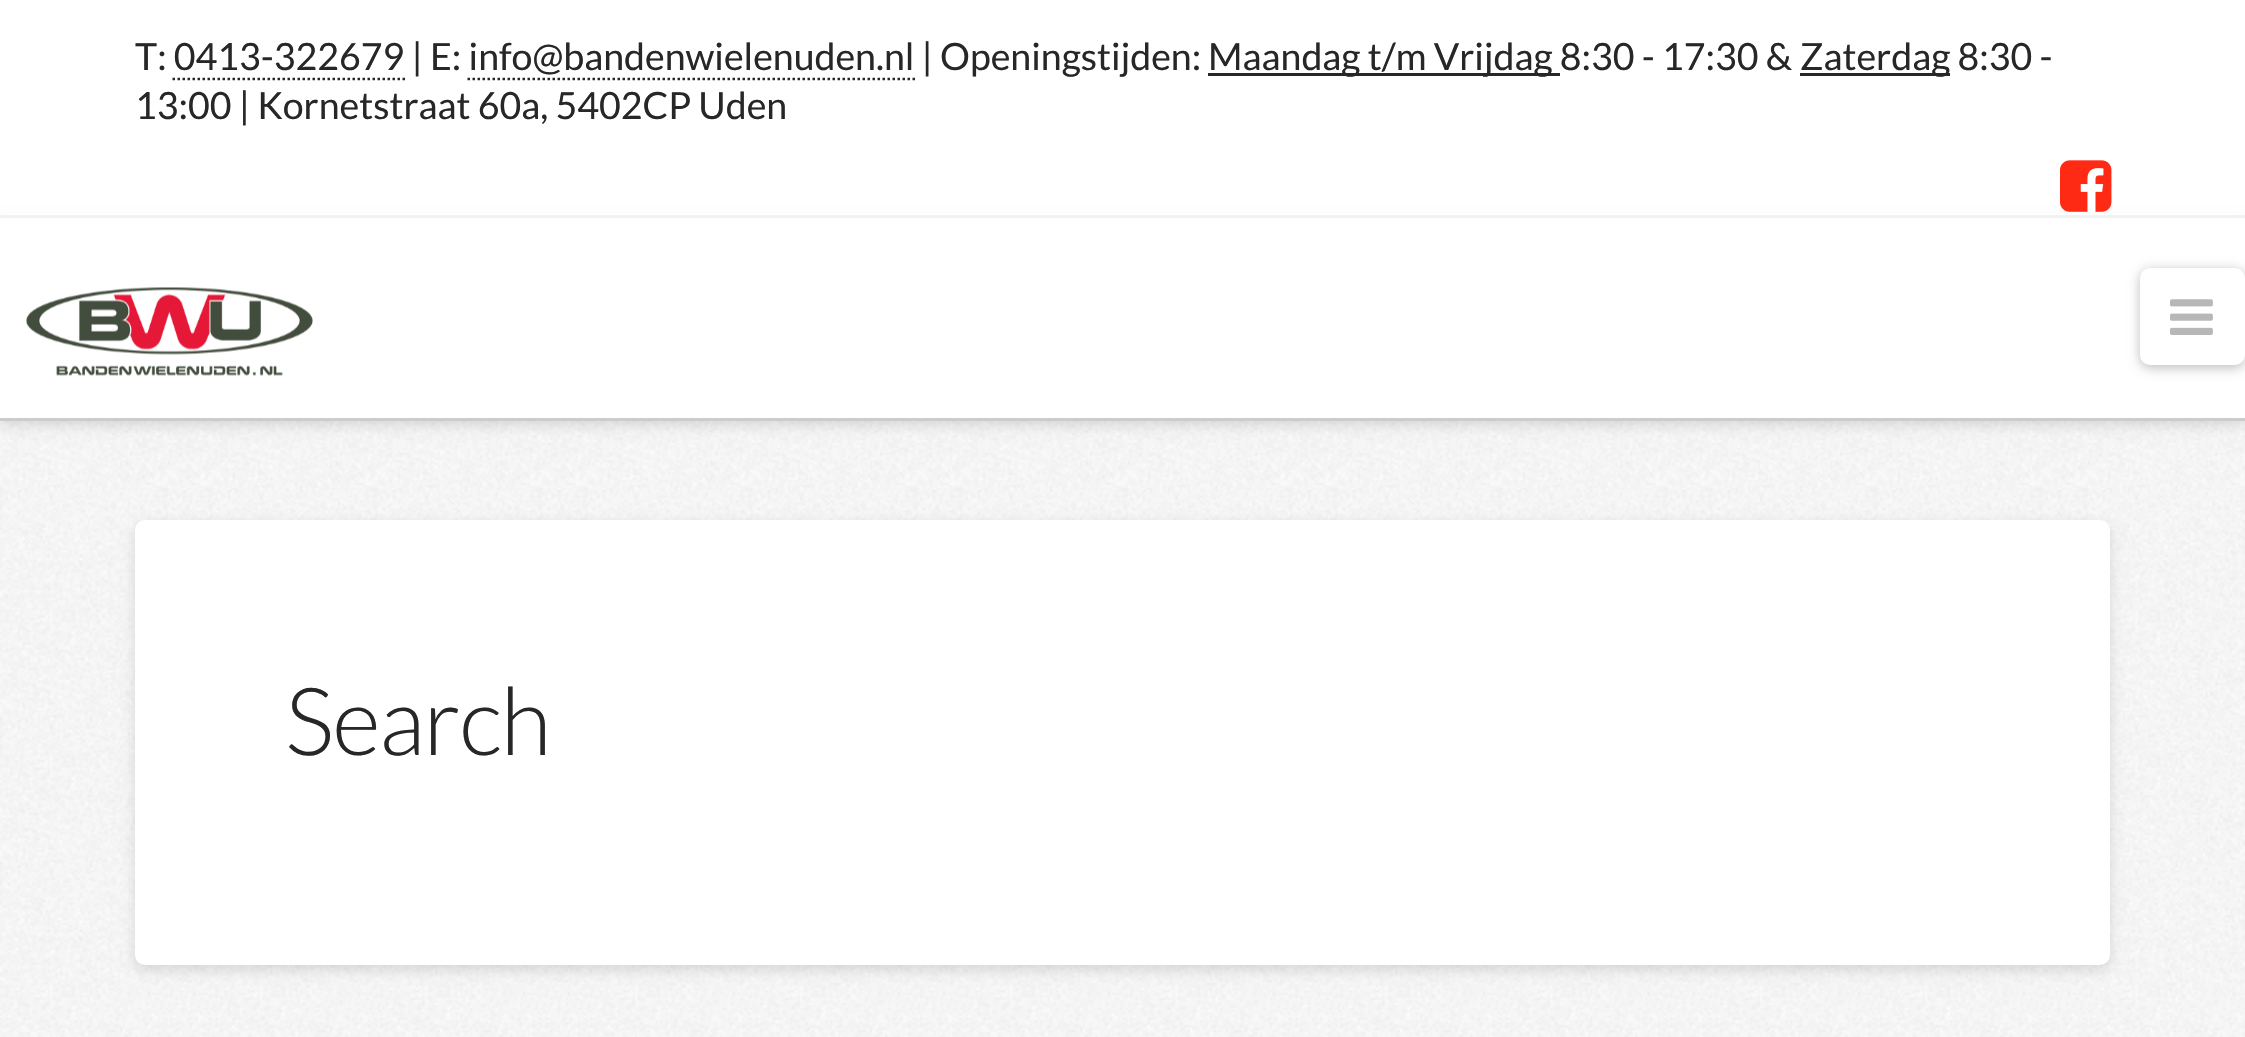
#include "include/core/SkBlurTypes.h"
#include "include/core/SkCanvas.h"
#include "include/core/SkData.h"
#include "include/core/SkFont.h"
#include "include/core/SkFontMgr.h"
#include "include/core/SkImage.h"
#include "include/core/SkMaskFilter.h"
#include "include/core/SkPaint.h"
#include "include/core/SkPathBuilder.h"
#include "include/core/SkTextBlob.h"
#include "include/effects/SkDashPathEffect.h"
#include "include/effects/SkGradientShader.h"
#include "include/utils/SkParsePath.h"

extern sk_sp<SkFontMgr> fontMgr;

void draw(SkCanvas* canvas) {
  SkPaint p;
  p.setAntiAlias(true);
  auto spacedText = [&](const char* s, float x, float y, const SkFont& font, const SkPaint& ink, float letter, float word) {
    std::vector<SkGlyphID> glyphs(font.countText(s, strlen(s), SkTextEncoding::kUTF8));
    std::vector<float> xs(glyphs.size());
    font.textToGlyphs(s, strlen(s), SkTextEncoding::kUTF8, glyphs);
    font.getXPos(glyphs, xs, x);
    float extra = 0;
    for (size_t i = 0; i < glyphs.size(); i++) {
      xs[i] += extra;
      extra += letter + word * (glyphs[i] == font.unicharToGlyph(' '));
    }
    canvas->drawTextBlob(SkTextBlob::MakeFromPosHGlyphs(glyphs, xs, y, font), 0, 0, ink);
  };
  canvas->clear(SK_ColorWHITE);
  canvas->drawImageRect(SkImages::DeferredFromEncodedData(SkData::MakeFromFileName("images/1.png")), SkRect::MakeLTRB(0, 421, 2245, 1037), SkSamplingOptions());
  p.setColor(SkColorSetARGB(33, 0, 0, 0));
  p.setMaskFilter(SkMaskFilter::MakeBlur(kNormal_SkBlurStyle, 6.5f));
  canvas->drawRect(SkRect::MakeLTRB(0, 223, 2245, 425), p);
  p.setMaskFilter(nullptr);
  p.setColor(SK_ColorWHITE);
  canvas->drawRect(SkRect::MakeLTRB(6, 214, 2239, 215), p);
  p.setColor(SkColorSetRGB(242, 242, 242));
  canvas->drawRect(SkRect::MakeLTRB(0, 215, 2245, 218), p);
  p.setColor(SkColorSetRGB(39, 39, 39));
  canvas->drawRect(SkRect::MakeLTRB(1208, 73, 1560, 76), p);
  canvas->drawRect(SkRect::MakeLTRB(1800, 73, 1950, 76), p);
  p.setStyle(SkPaint::kStroke_Style);
  p.setStrokeWidth(2.5f);
  p.setPathEffect(SkDashPathEffect::Make({{2.5f, 2.5f}}, 0));
  canvas->drawPath(SkPathBuilder().moveTo(172.5f, 79).lineTo(405, 79).detach(), p);
  p.setPathEffect(nullptr);
  p.setPathEffect(SkDashPathEffect::Make({{2.5f, 2.5f}}, 0));
  canvas->drawPath(SkPathBuilder().moveTo(467.5f, 79).lineTo(915, 79).detach(), p);
  p.setPathEffect(nullptr);
  canvas->drawImageRect(SkImages::DeferredFromEncodedData(SkData::MakeFromFileName("images/2.png")), SkRect::MakeLTRB(2060, 160, 2112, 212), SkSamplingOptions());
  p.setStyle(SkPaint::kFill_Style);
  p.setColor(SK_ColorWHITE);
  canvas->drawRect(SkRect::MakeLTRB(0, 218, 2245, 418), p);
  p.setColor(SkColorSetRGB(204, 204, 204));
  canvas->drawRect(SkRect::MakeLTRB(0, 418, 2245, 421), p);
  canvas->drawImageRect(SkImages::DeferredFromEncodedData(SkData::MakeFromFileName("images/3.png")), SkRect::MakeLTRB(26, 287, 313, 376), SkSamplingOptions());
  p.setColor(SkColorSetARGB(64, 0, 0, 0));
  p.setMaskFilter(SkMaskFilter::MakeBlur(kNormal_SkBlurStyle, 6));
  canvas->drawRoundRect(SkRect::MakeLTRB(2140, 270, 2245, 368), 10, 10, p);
  p.setMaskFilter(nullptr);
  p.setColor(SK_ColorWHITE);
  canvas->drawRoundRect(SkRect::MakeLTRB(2140, 268, 2245, 365), 10, 10, p);
  canvas->drawImageRect(SkImages::DeferredFromEncodedData(SkData::MakeFromFileName("images/4.png")), SkRect::MakeLTRB(2170, 299, 2213, 335), SkSamplingOptions());
  p.setColor(SkColorSetARGB(33, 0, 0, 0));
  p.setMaskFilter(SkMaskFilter::MakeBlur(kNormal_SkBlurStyle, 6.5f));
  canvas->drawRoundRect(SkRect::MakeLTRB(135, 525, 2110, 970), 10, 10, p);
  p.setMaskFilter(nullptr);
  p.setColor(SK_ColorWHITE);
  canvas->drawRoundRect(SkRect::MakeLTRB(135, 520, 2110, 965), 10, 10, p);
  SkFont font1(fontMgr->matchFamilyStyle("Lato", SkFontStyle::Normal()), 37.5f);
  font1.setSubpixel(true);
  p.setColor(SkColorSetRGB(39, 39, 39));
  canvas->drawString("T: 0413-322679 | E: info@bandenwielenuden.nl | Openingstijden:", 135, 70, font1, p);
  canvas->drawString("Maandag t/m Vrijdag 8:30 - 17:30 &", 1208, 70, font1, p);
  canvas->drawString("Zaterdag 8:30 -", 1800, 70, font1, p);
  canvas->drawString("13:00 | Kornetstraat 60a, 5402CP Uden", 135, 119, font1, p);
  SkFont font2(fontMgr->matchFamilyStyle("Lato", SkFontStyle(300, SkFontStyle::kNormal_Width, SkFontStyle::kUpright_Slant)), 94);
  font2.setSubpixel(true);
  spacedText("Search", 285, 755, font2, p, -1.5f, 0);
}
